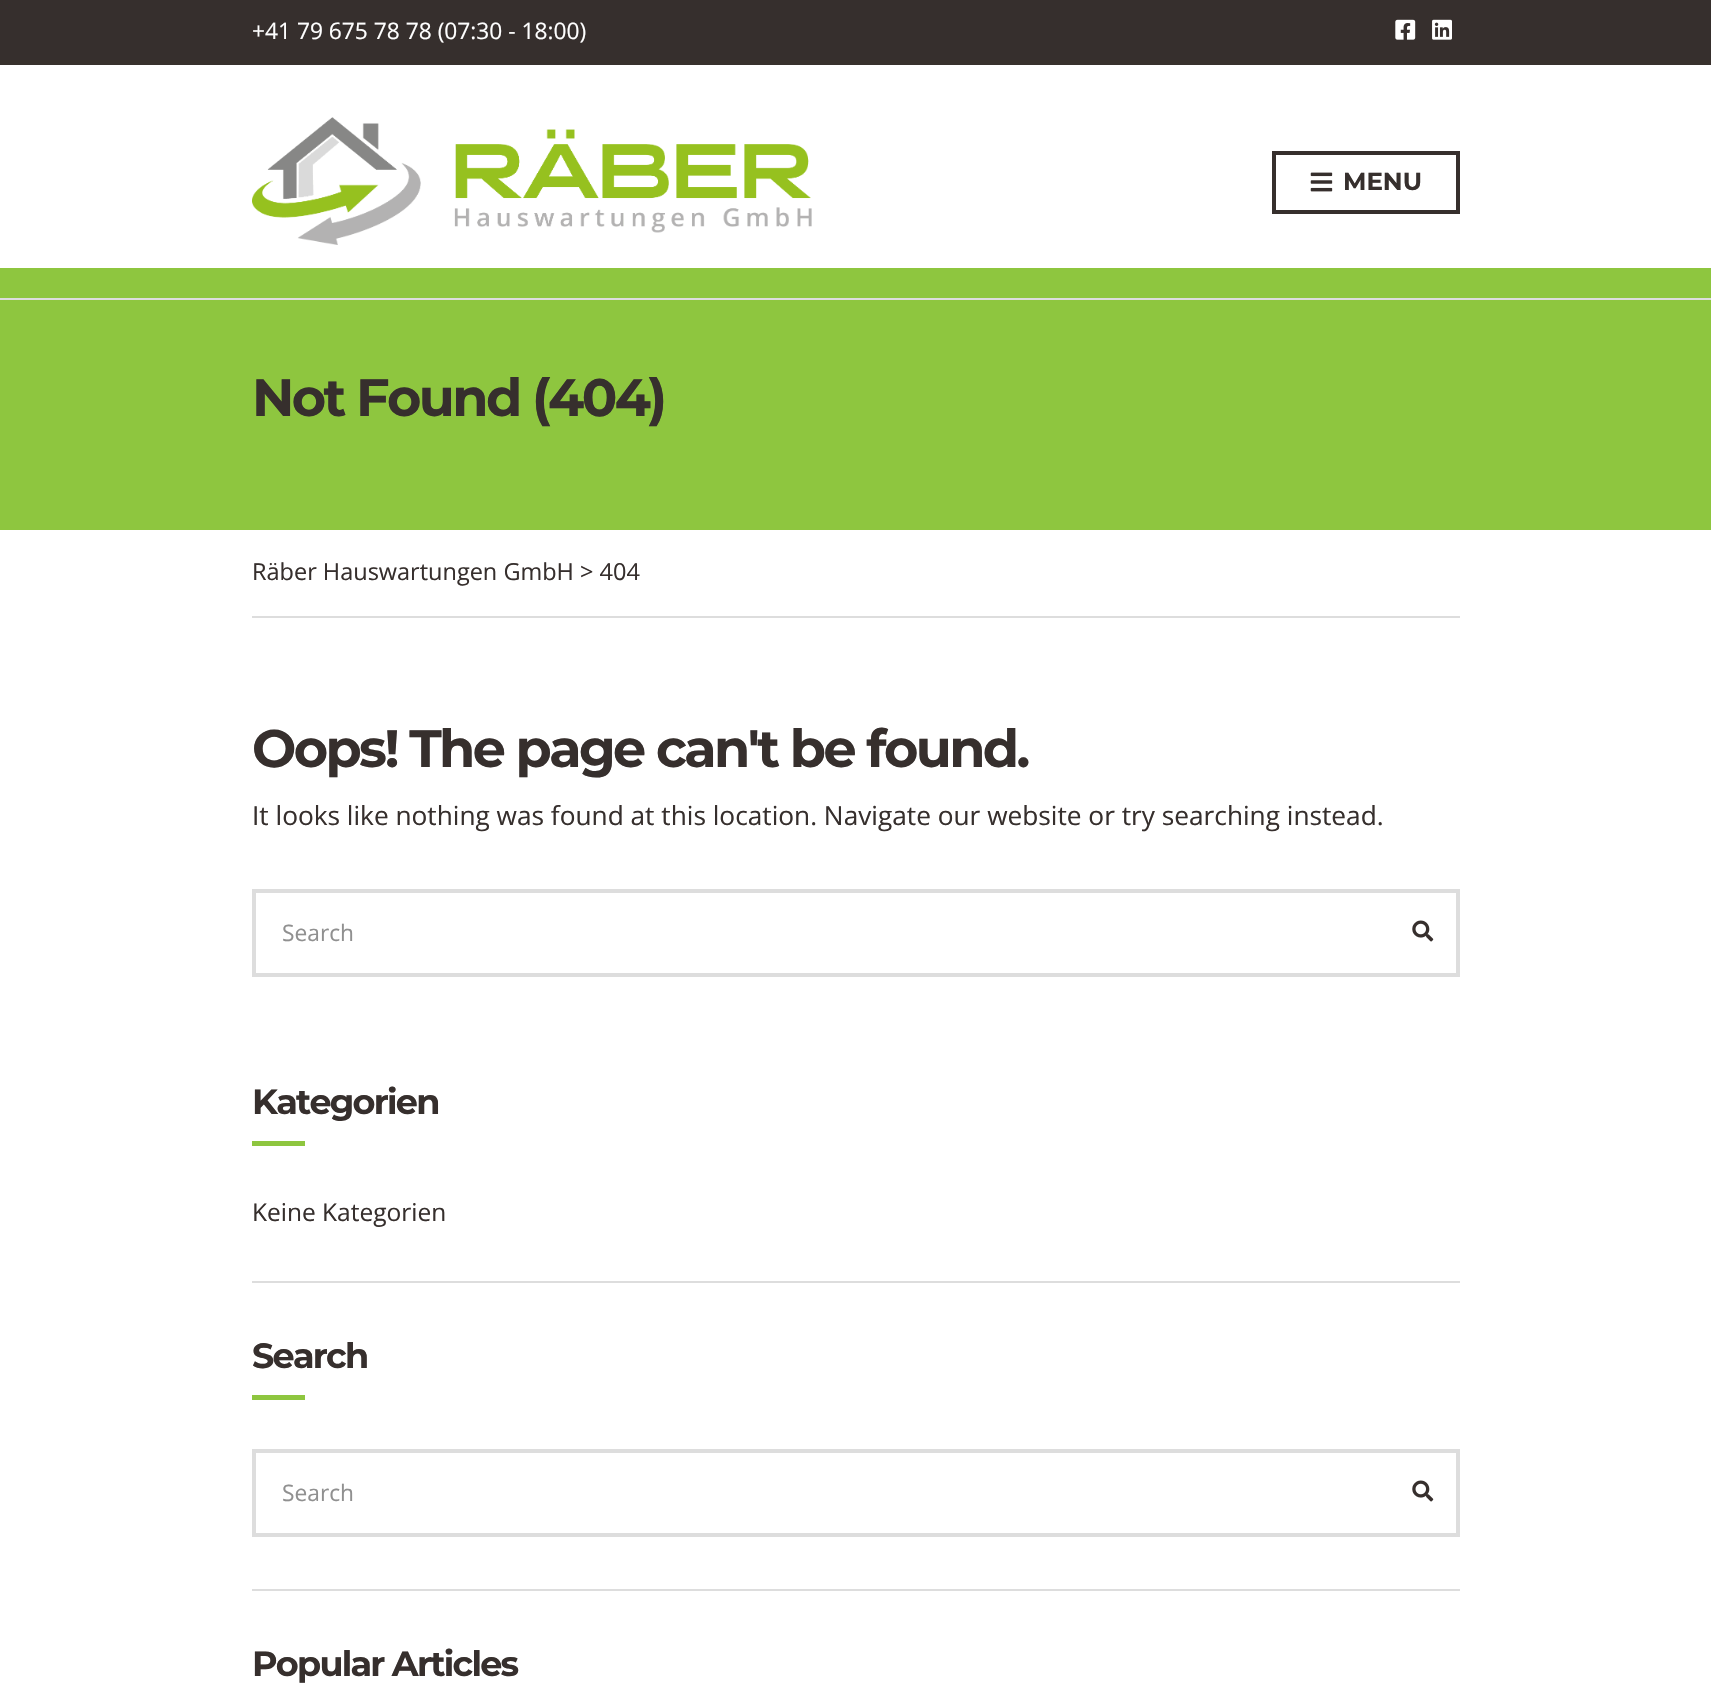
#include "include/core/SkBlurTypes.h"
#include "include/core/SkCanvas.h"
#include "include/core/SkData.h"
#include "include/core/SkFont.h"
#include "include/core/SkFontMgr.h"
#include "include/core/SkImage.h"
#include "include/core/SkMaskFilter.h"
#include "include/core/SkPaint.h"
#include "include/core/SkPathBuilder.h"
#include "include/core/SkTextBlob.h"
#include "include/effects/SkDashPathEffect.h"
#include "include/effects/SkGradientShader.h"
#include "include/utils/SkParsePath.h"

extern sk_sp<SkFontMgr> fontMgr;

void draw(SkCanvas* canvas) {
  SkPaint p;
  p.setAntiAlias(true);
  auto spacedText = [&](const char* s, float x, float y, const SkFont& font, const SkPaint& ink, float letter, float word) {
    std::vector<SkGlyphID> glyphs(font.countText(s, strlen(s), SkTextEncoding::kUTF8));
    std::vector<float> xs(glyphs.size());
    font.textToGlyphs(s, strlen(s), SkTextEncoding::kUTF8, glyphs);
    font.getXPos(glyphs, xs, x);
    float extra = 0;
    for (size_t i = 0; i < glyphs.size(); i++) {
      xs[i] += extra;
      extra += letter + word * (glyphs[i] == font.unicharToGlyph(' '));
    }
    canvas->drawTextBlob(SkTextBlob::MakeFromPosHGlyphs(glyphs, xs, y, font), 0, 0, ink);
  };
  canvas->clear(SK_ColorWHITE);
  p.setColor(SkColorSetRGB(54, 47, 45));
  canvas->drawRect(SkRect::MakeLTRB(0, 0, 1711, 60), p);
  p.setColor(SkColorSetRGB(56, 49, 45));
  canvas->drawRect(SkRect::MakeLTRB(0, 60, 1711, 65), p);
  canvas->drawImageRect(SkImages::DeferredFromEncodedData(SkData::MakeFromFileName("images/1.png")), SkRect::MakeLTRB(1395, 19, 1416, 40), SkSamplingOptions());
  canvas->drawImageRect(SkImages::DeferredFromEncodedData(SkData::MakeFromFileName("images/2.png")), SkRect::MakeLTRB(1432, 19, 1452, 40), SkSamplingOptions());
  p.setColor(SkColorSetRGB(142, 198, 63));
  canvas->drawRect(SkRect::MakeLTRB(0, 268, 1711, 530), p);
  p.setColor(SkColorSetRGB(221, 221, 221));
  canvas->drawRect(SkRect::MakeLTRB(0, 298, 1711, 300), p);
  canvas->drawImageRect(SkImages::DeferredFromEncodedData(SkData::MakeFromFileName("images/3.png")), SkRect::MakeLTRB(252, 117, 812, 245), SkSamplingOptions());
  p.setStyle(SkPaint::kStroke_Style);
  p.setStrokeWidth(4);
  p.setColor(SkColorSetRGB(54, 47, 45));
  canvas->drawRect(SkRect::MakeLTRB(1274, 153, 1458, 212), p);
  canvas->drawImageRect(SkImages::DeferredFromEncodedData(SkData::MakeFromFileName("images/4.png")), SkRect::MakeLTRB(1310, 172, 1333, 192), SkSamplingOptions());
  p.setStyle(SkPaint::kFill_Style);
  p.setColor(SkColorSetRGB(221, 221, 221));
  canvas->drawRect(SkRect::MakeLTRB(252, 616, 1460, 618), p);
  p.setStyle(SkPaint::kStroke_Style);
  canvas->drawRect(SkRect::MakeLTRB(254, 891, 1458, 975), p);
  canvas->drawImageRect(SkImages::DeferredFromEncodedData(SkData::MakeFromFileName("images/5.png")), SkRect::MakeLTRB(1412, 920, 1434, 942), SkSamplingOptions());
  p.setStyle(SkPaint::kFill_Style);
  canvas->drawRect(SkRect::MakeLTRB(252, 1281, 1460, 1283), p);
  p.setColor(SkColorSetRGB(142, 198, 63));
  canvas->drawRect(SkRect::MakeLTRB(252, 1141, 305, 1146), p);
  p.setColor(SkColorSetRGB(221, 221, 221));
  canvas->drawRect(SkRect::MakeLTRB(252, 1589, 1460, 1591), p);
  p.setColor(SkColorSetRGB(142, 198, 63));
  canvas->drawRect(SkRect::MakeLTRB(252, 1395, 305, 1400), p);
  p.setStyle(SkPaint::kStroke_Style);
  p.setColor(SkColorSetRGB(221, 221, 221));
  canvas->drawRect(SkRect::MakeLTRB(254, 1451, 1458, 1535), p);
  canvas->drawImageRect(SkImages::DeferredFromEncodedData(SkData::MakeFromFileName("images/5.png")), SkRect::MakeLTRB(1412, 1480, 1434, 1502), SkSamplingOptions());
  SkFont font1(fontMgr->matchFamilyStyle("Open Sans", SkFontStyle::Normal()), 22.75f);
  font1.setSubpixel(true);
  p.setStyle(SkPaint::kFill_Style);
  p.setColor(SK_ColorWHITE);
  canvas->drawString("+41 79 675 78 78 (07:30 - 18:00)", 252, 39, font1, p);
  SkFont font2(fontMgr->matchFamilyStyle("Montserrat", SkFontStyle::Bold()), 24.5f);
  font2.setSubpixel(true);
  p.setColor(SkColorSetRGB(54, 47, 45));
  canvas->drawString("MENU", 1343, 190, font2, p);
  SkFont font3(fontMgr->matchFamilyStyle("Montserrat", SkFontStyle::Bold()), 52.5f);
  font3.setSubpixel(true);
  spacedText("Not Found (404)", 252, 416, font3, p, -2.6f, 0);
  SkFont font4(fontMgr->matchFamilyStyle("Open Sans", SkFontStyle::Normal()), 23.5f);
  font4.setSubpixel(true);
  canvas->drawString("Räber Hauswartungen GmbH", 252, 580, font4, p);
  canvas->drawString("> 404", 580, 580, font4, p);
  spacedText("Oops! The page can't be found.", 252, 767, font3, p, -2.6f, 0);
  SkFont font5(fontMgr->matchFamilyStyle("Open Sans", SkFontStyle::Normal()), 26.25f);
  font5.setSubpixel(true);
  canvas->drawString("It looks like nothing was found at this location. Navigate our website or try searching instead.", 252, 825, font5, p);
  p.setColor(SkColorSetRGB(144, 144, 144));
  canvas->drawString("Search", 282, 941, font1, p);
  SkFont font6(fontMgr->matchFamilyStyle("Montserrat", SkFontStyle::Bold()), 35);
  font6.setSubpixel(true);
  p.setColor(SkColorSetRGB(54, 47, 45));
  spacedText("Kategorien", 252, 1114, font6, p, -1.75f, 0);
  SkFont font7(fontMgr->matchFamilyStyle("Open Sans", SkFontStyle::Normal()), 24.5f);
  font7.setSubpixel(true);
  canvas->drawString("Keine Kategorien", 252, 1221, font7, p);
  spacedText("Search", 252, 1368, font6, p, -1.75f, 0);
  p.setColor(SkColorSetRGB(144, 144, 144));
  canvas->drawString("Search", 282, 1501, font1, p);
  p.setColor(SkColorSetRGB(54, 47, 45));
  spacedText("Popular Articles", 252, 1676, font6, p, -1.75f, 0);
}
